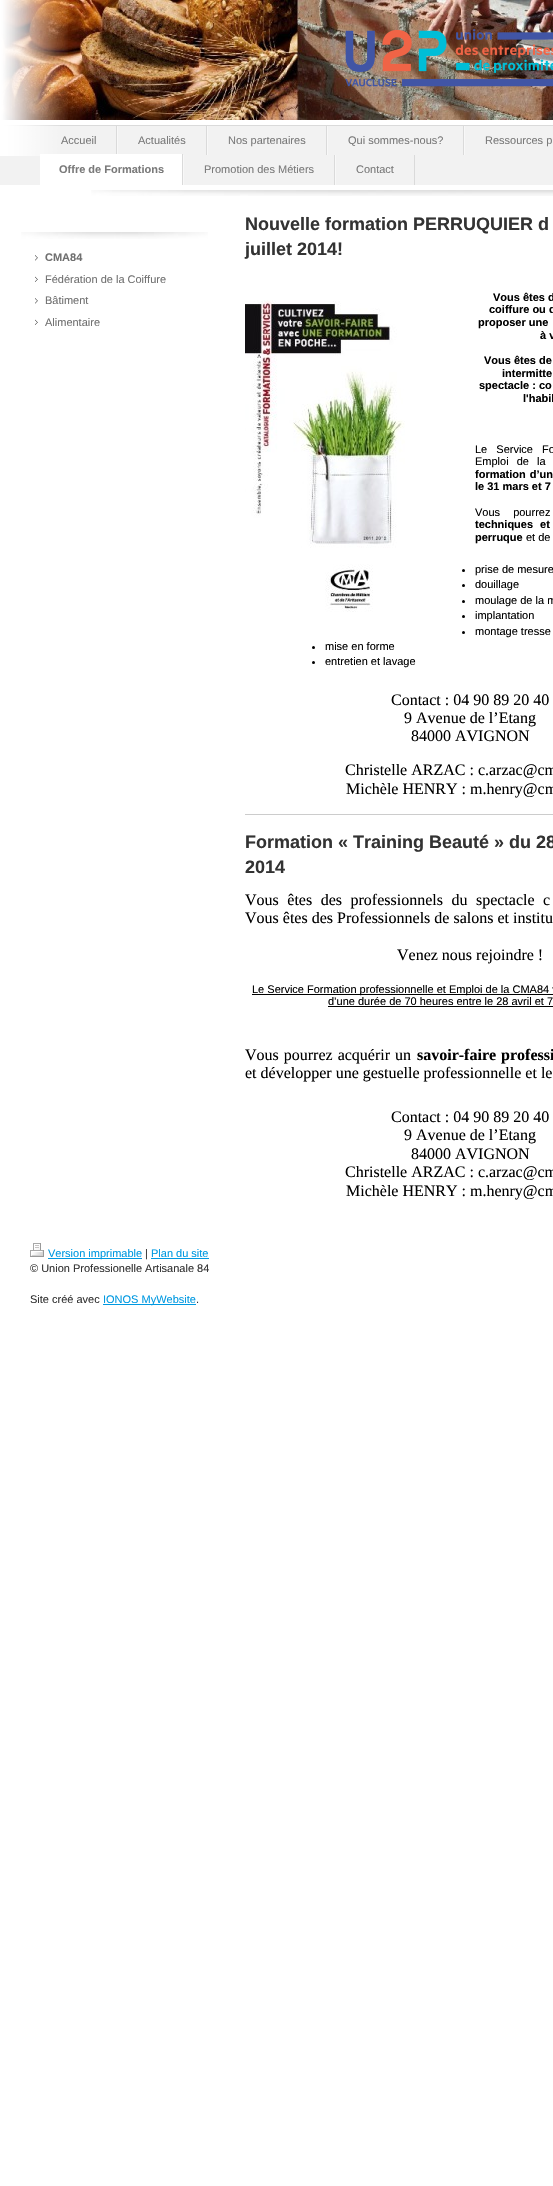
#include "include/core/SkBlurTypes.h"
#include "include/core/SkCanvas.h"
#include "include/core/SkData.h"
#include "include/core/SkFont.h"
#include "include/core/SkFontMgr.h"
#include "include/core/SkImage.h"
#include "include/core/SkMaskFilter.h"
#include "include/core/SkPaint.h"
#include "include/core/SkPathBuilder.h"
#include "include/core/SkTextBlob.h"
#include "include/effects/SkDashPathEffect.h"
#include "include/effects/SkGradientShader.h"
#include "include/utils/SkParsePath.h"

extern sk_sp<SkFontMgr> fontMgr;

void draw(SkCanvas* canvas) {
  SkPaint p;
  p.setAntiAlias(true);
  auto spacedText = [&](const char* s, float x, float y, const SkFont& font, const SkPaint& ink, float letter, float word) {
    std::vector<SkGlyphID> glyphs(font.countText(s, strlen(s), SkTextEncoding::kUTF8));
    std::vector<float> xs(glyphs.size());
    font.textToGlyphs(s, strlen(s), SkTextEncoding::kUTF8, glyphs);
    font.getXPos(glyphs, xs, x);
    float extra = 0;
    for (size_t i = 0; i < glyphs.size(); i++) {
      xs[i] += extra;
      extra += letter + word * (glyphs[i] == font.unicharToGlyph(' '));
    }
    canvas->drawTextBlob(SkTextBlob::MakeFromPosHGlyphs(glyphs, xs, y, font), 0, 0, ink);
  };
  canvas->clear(SK_ColorWHITE);
  canvas->drawImageRect(SkImages::DeferredFromEncodedData(SkData::MakeFromFileName("images/2.png")), SkRect::MakeLTRB(1, 0, 553, 120), SkSamplingOptions());
  canvas->drawImageRect(SkImages::DeferredFromEncodedData(SkData::MakeFromFileName("images/1.png")), SkRect::MakeLTRB(0, 0, 68, 120), SkSamplingOptions());
  canvas->drawImageRect(SkImages::DeferredFromEncodedData(SkData::MakeFromFileName("images/3.png")), SkRect::MakeLTRB(345, 29, 553, 87), SkSamplingOptions());
  p.setColor(SkColorSetRGB(242, 242, 242));
  canvas->drawRect(SkRect::MakeLTRB(0, 126, 553, 185), p);
  p.setColor(SkColorSetRGB(218, 218, 218));
  canvas->drawRect(SkRect::MakeLTRB(0, 125, 553, 126), p);
  canvas->drawImageRect(SkImages::DeferredFromEncodedData(SkData::MakeFromFileName("images/4.png")), SkRect::MakeLTRB(0, 125, 60, 156), SkSamplingOptions());
  canvas->drawRect(SkRect::MakeLTRB(116, 126, 117, 155), p);
  canvas->drawRect(SkRect::MakeLTRB(206, 126, 207, 155), p);
  p.setColor(SkColorSetRGB(248, 248, 248));
  canvas->drawRect(SkRect::MakeLTRB(117, 126, 118, 155), p);
  p.setColor(SkColorSetRGB(218, 218, 218));
  canvas->drawRect(SkRect::MakeLTRB(326, 126, 327, 155), p);
  p.setColor(SkColorSetRGB(248, 248, 248));
  canvas->drawRect(SkRect::MakeLTRB(207, 126, 208, 155), p);
  p.setColor(SkColorSetRGB(218, 218, 218));
  canvas->drawRect(SkRect::MakeLTRB(463, 126, 464, 155), p);
  p.setColor(SkColorSetRGB(248, 248, 248));
  canvas->drawRect(SkRect::MakeLTRB(327, 126, 328, 155), p);
  canvas->drawRect(SkRect::MakeLTRB(464, 126, 465, 155), p);
  p.setColor(SK_ColorWHITE);
  canvas->drawRect(SkRect::MakeLTRB(40, 154, 182, 185), p);
  p.setColor(SkColorSetRGB(218, 218, 218));
  canvas->drawRect(SkRect::MakeLTRB(182, 154, 183, 185), p);
  canvas->drawRect(SkRect::MakeLTRB(334, 155, 335, 185), p);
  p.setColor(SkColorSetRGB(248, 248, 248));
  canvas->drawRect(SkRect::MakeLTRB(183, 155, 184, 185), p);
  p.setColor(SkColorSetRGB(218, 218, 218));
  canvas->drawRect(SkRect::MakeLTRB(414, 155, 415, 185), p);
  p.setColor(SkColorSetRGB(248, 248, 248));
  canvas->drawRect(SkRect::MakeLTRB(335, 155, 336, 185), p);
  canvas->drawImageRect(SkImages::DeferredFromEncodedData(SkData::MakeFromFileName("images/5.png")), SkRect::MakeLTRB(91, 190, 553, 196), SkSamplingOptions());
  canvas->drawImageRect(SkImages::DeferredFromEncodedData(SkData::MakeFromFileName("images/6.png")), SkRect::MakeLTRB(21, 232, 208, 239), SkSamplingOptions());
  p.setColor(SkColorSetRGB(112, 112, 112));
  canvas->drawRect(SkRect::MakeLTRB(35, 255, 38, 261), p);
  canvas->drawImageRect(SkImages::DeferredFromEncodedData(SkData::MakeFromFileName("images/7.png")), SkRect::MakeLTRB(30, 247, 240, 269), SkSamplingOptions());
  canvas->drawRect(SkRect::MakeLTRB(35, 276, 38, 282), p);
  canvas->drawImageRect(SkImages::DeferredFromEncodedData(SkData::MakeFromFileName("images/8.png")), SkRect::MakeLTRB(30, 269, 240, 290), SkSamplingOptions());
  canvas->drawRect(SkRect::MakeLTRB(35, 298, 38, 304), p);
  canvas->drawImageRect(SkImages::DeferredFromEncodedData(SkData::MakeFromFileName("images/7.png")), SkRect::MakeLTRB(30, 290, 240, 312), SkSamplingOptions());
  canvas->drawRect(SkRect::MakeLTRB(35, 319, 38, 325), p);
  canvas->drawImageRect(SkImages::DeferredFromEncodedData(SkData::MakeFromFileName("images/8.png")), SkRect::MakeLTRB(30, 312, 240, 333), SkSamplingOptions());
  p.setColor(SK_ColorBLACK);
  canvas->drawCircle(463.5f, 570.5f, 1.5f, p);
  canvas->drawCircle(463.5f, 585.5f, 1.5f, p);
  canvas->drawCircle(463.5f, 601.5f, 1.5f, p);
  canvas->drawCircle(463.5f, 616.5f, 1.5f, p);
  canvas->drawCircle(463.5f, 632.5f, 1.5f, p);
  canvas->drawCircle(313.5f, 647.5f, 1.5f, p);
  canvas->drawCircle(313.5f, 662.5f, 1.5f, p);
  canvas->drawImageRect(SkImages::DeferredFromEncodedData(SkData::MakeFromFileName("images/9.png")), SkRect::MakeLTRB(245, 300, 405, 612), SkSamplingOptions());
  p.setColor(SkColorSetRGB(204, 204, 204));
  canvas->drawRect(SkRect::MakeLTRB(245, 814, 553, 815), p);
  p.setColor(SK_ColorBLACK);
  canvas->drawRect(SkRect::MakeLTRB(252, 994, 553, 995), p);
  canvas->drawRect(SkRect::MakeLTRB(328, 1006, 553, 1007), p);
  canvas->drawImageRect(SkImages::DeferredFromEncodedData(SkData::MakeFromFileName("images/10.png")), SkRect::MakeLTRB(30, 1243, 44, 1257), SkSamplingOptions());
  p.setColor(SkColorSetRGB(0, 153, 225));
  canvas->drawRect(SkRect::MakeLTRB(48, 1258, 142, 1259), p);
  canvas->drawRect(SkRect::MakeLTRB(151, 1258, 209, 1259), p);
  canvas->drawRect(SkRect::MakeLTRB(103, 1304, 196, 1305), p);
  SkFont font1(fontMgr->matchFamilyStyle("Liberation Sans", SkFontStyle::Normal()), 11);
  font1.setSubpixel(true);
  p.setColor(SkColorSetRGB(122, 122, 122));
  canvas->drawString("Accueil", 61, 144, font1, p);
  canvas->drawString("Actualités", 138, 144, font1, p);
  canvas->drawString("Nos partenaires", 228, 144, font1, p);
  canvas->drawString("Qui sommes-nous?", 348, 144, font1, p);
  canvas->drawString("Ressources p", 485, 144, font1, p);
  SkFont font2(fontMgr->matchFamilyStyle("Liberation Sans", SkFontStyle::Bold()), 11);
  font2.setSubpixel(true);
  canvas->drawString("Offre de Formations", 59, 173, font2, p);
  canvas->drawString("Promotion des Métiers", 204, 173, font1, p);
  canvas->drawString("Contact", 356, 173, font1, p);
  p.setColor(SkColorSetRGB(112, 112, 112));
  canvas->drawString("CMA84", 45, 261, font2, p);
  canvas->drawString("Fédération de la Coiffure", 45, 283, font1, p);
  canvas->drawString("Bâtiment", 45, 304, font1, p);
  canvas->drawString("Alimentaire", 45, 326, font1, p);
  SkFont font3(fontMgr->matchFamilyStyle("Liberation Sans", SkFontStyle::Bold()), 18);
  font3.setSubpixel(true);
  p.setColor(SkColorSetRGB(51, 51, 51));
  canvas->drawString("Nouvelle formation PERRUQUIER d", 245, 230, font3, p);
  canvas->drawString("juillet 2014!", 245, 255, font3, p);
  p.setColor(SK_ColorBLACK);
  canvas->drawString("Vous êtes d", 493, 301, font2, p);
  canvas->drawString("coiffure ou d", 489, 313, font2, p);
  canvas->drawString("proposer une", 478, 326, font2, p);
  canvas->drawString("à v", 540, 339, font2, p);
  canvas->drawString("Vous êtes de", 484, 364, font2, p);
  canvas->drawString("intermitte", 502, 377, font2, p);
  canvas->drawString("spectacle : co", 479, 389, font2, p);
  canvas->drawString("l'habil", 523, 402, font2, p);
  spacedText("Le Service Fo", 475, 453, font1, p, 0, 6);
  spacedText("Emploi de la", 475, 465, font1, p, 0, 5);
  spacedText("formation d’un", 475, 478, font2, p, 0, 1);
  canvas->drawString("le 31 mars et 7", 475, 490, font2, p);
  spacedText("Vous pourrez", 475, 516, font1, p, 0, 10);
  spacedText("techniques et", 475, 528, font2, p, 0, 4);
  canvas->drawString("perruque", 475, 541, font2, p);
  canvas->drawString("et de", 526, 541, font1, p);
  canvas->drawString("prise de mesure", 475, 573, font1, p);
  canvas->drawString("douillage", 475, 588, font1, p);
  canvas->drawString("moulage de la m", 475, 604, font1, p);
  canvas->drawString("implantation", 475, 619, font1, p);
  canvas->drawString("montage tresse", 475, 635, font1, p);
  canvas->drawString("mise en forme", 325, 650, font1, p);
  canvas->drawString("entretien et lavage", 325, 665, font1, p);
  SkFont font4(fontMgr->matchFamilyStyle("Liberation Serif", SkFontStyle::Normal()), 16);
  font4.setSubpixel(true);
  canvas->drawString("Contact : 04 90 89 20 40", 391, 705, font4, p);
  canvas->drawString("9 Avenue de l’Etang", 404, 723, font4, p);
  canvas->drawString("84000 AVIGNON", 411, 741, font4, p);
  canvas->drawString("Christelle ARZAC : c.arzac@cm", 345, 775, font4, p);
  canvas->drawString("Michèle HENRY : m.henry@cm", 346, 794, font4, p);
  p.setColor(SkColorSetRGB(51, 51, 51));
  canvas->drawString("Formation « Training Beauté » du 28", 245, 848, font3, p);
  canvas->drawString("2014", 245, 873, font3, p);
  p.setColor(SK_ColorBLACK);
  spacedText("Vous êtes des professionnels du spectacle c", 245, 905, font4, p, 0, 4.5f);
  canvas->drawString("Vous êtes des Professionnels de salons et institu", 245, 923, font4, p);
  canvas->drawString("Venez nous rejoindre !", 397, 960, font4, p);
  canvas->drawString("Le Service Formation professionnelle et Emploi de la CMA84 v", 252, 993, font1, p);
  canvas->drawString("d’une durée de 70 heures entre le 28 avril et 7", 328, 1005, font1, p);
  spacedText("Vous pourrez acquérir un", 245, 1060, font4, p, 0, 1);
  SkFont font5(fontMgr->matchFamilyStyle("Liberation Serif", SkFontStyle::Bold()), 16);
  font5.setSubpixel(true);
  spacedText("savoir-faire professi", 417, 1060, font5, p, 0, 1);
  canvas->drawString("et développer une gestuelle professionnelle et le", 245, 1078, font4, p);
  canvas->drawString("Contact : 04 90 89 20 40", 391, 1122, font4, p);
  canvas->drawString("9 Avenue de l’Etang", 404, 1140, font4, p);
  canvas->drawString("84000 AVIGNON", 411, 1159, font4, p);
  canvas->drawString("Christelle ARZAC : c.arzac@cm", 345, 1177, font4, p);
  canvas->drawString("Michèle HENRY : m.henry@cm", 346, 1196, font4, p);
  p.setColor(SkColorSetRGB(0, 153, 225));
  canvas->drawString("Version imprimable", 48, 1257, font1, p);
  p.setColor(SkColorSetRGB(51, 51, 51));
  canvas->drawString("|", 145, 1257, font1, p);
  p.setColor(SkColorSetRGB(0, 153, 225));
  canvas->drawString("Plan du site", 151, 1257, font1, p);
  p.setColor(SkColorSetRGB(51, 51, 51));
  canvas->drawString("© Union Professionelle Artisanale 84", 30, 1272, font1, p);
  canvas->drawString("Site créé avec", 30, 1303, font1, p);
  p.setColor(SkColorSetRGB(0, 153, 225));
  canvas->drawString("IONOS MyWebsite", 103, 1303, font1, p);
  p.setColor(SkColorSetRGB(51, 51, 51));
  canvas->drawString(".", 196, 1303, font1, p);
}
